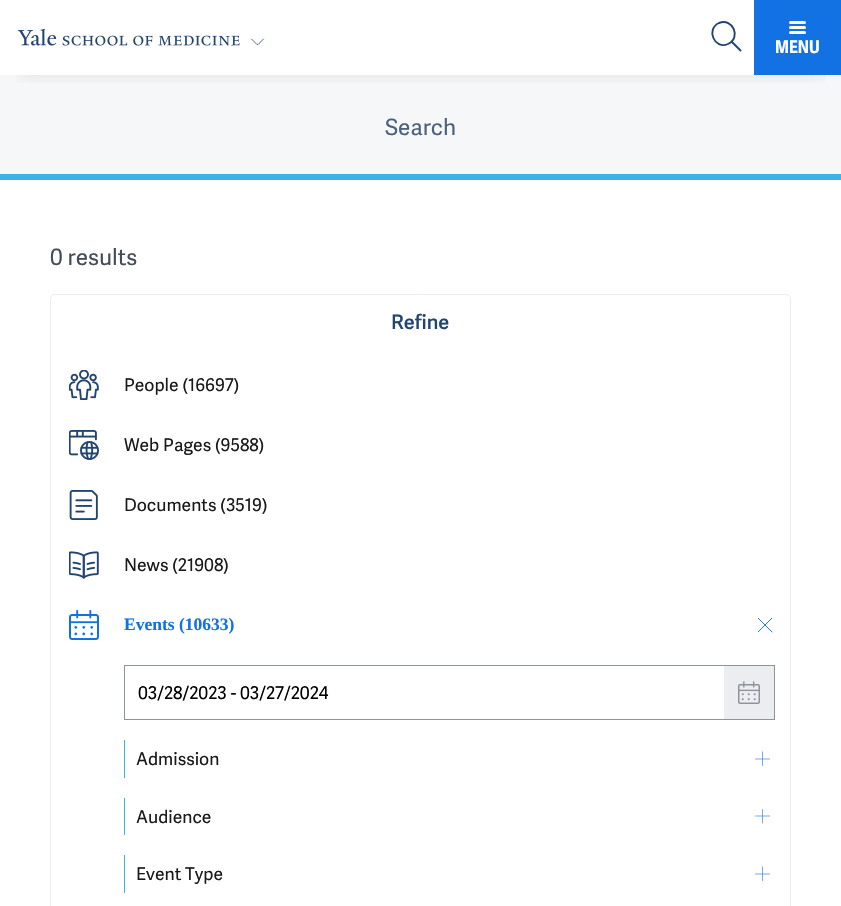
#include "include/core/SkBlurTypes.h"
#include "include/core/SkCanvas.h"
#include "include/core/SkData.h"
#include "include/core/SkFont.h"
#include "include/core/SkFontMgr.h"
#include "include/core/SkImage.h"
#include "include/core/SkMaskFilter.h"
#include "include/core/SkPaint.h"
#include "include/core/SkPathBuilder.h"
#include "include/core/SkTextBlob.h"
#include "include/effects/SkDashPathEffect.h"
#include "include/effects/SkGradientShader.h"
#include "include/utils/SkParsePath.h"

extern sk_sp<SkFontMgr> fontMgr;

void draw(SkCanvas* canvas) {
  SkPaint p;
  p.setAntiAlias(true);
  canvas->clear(SK_ColorWHITE);
  p.setColor(SkColorSetRGB(246, 247, 249));
  canvas->drawRect(SkRect::MakeLTRB(0, 75, 841, 174), p);
  canvas->save();
  canvas->clipRect(SkRect::MakeLTRB(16, 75, 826, 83));
  p.setColor(SkColorSetARGB(26, 25, 25, 25));
  p.setMaskFilter(SkMaskFilter::MakeBlur(kNormal_SkBlurStyle, 9));
  canvas->drawRect(SkRect::MakeLTRB(18, 35, 824, 75), p);
  p.setMaskFilter(nullptr);
  canvas->restore();
  canvas->drawImageRect(SkImages::DeferredFromEncodedData(SkData::MakeFromFileName("images/1.png")), SkRect::MakeLTRB(18, 29, 240, 46), SkSamplingOptions());
  p.setStyle(SkPaint::kStroke_Style);
  p.setStrokeWidth(0.8f);
  p.setStrokeCap(SkPaint::kRound_Cap);
  p.setStrokeJoin(SkPaint::kRound_Join);
  p.setColor(SkColorSetRGB(34, 69, 112));
  canvas->drawPath(SkPathBuilder().moveTo(263.5f, 39).lineTo(258, 44.5f).lineTo(257, 44.5f).lineTo(251.5f, 39).detach(), p);
  p.setStrokeWidth(1.9f);
  canvas->drawPath(SkPathBuilder().moveTo(719, 23).cubicTo(733, 17.5f, 741.5f, 38, 728, 44).cubicTo(714.5f, 50, 705.5f, 29, 719, 23).close().moveTo(731.5f, 41.5f).lineTo(740.5f, 50.5f).detach(), p);
  p.setStyle(SkPaint::kFill_Style);
  p.setColor(SkColorSetRGB(18, 113, 227));
  canvas->drawRect(SkRect::MakeLTRB(754, 0, 841, 75), p);
  p.setColor(SK_ColorWHITE);
  canvas->drawRoundRect(SkRect::MakeLTRB(789, 21, 806, 24), 1.5f, 1.5f, p);
  canvas->drawRoundRect(SkRect::MakeLTRB(789, 26, 806, 29), 1.5f, 1.5f, p);
  canvas->drawRoundRect(SkRect::MakeLTRB(789, 31, 806, 34), 1.5f, 1.5f, p);
  p.setColor(SkColorSetRGB(59, 179, 229));
  canvas->drawRect(SkRect::MakeLTRB(0, 174, 841, 180), p);
  p.setStyle(SkPaint::kStroke_Style);
  p.setStrokeWidth(1);
  p.setStrokeCap(SkPaint::kButt_Cap);
  p.setStrokeJoin(SkPaint::kMiter_Join);
  p.setColor(SkColorSetRGB(235, 237, 240));
  canvas->drawRoundRect(SkRect::MakeLTRB(50.5f, 294.5f, 790.5f, 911.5f), 4.5f, 4.5f, p);
  canvas->drawImageRect(SkImages::DeferredFromEncodedData(SkData::MakeFromFileName("images/2.png")), SkRect::MakeLTRB(69, 370, 99, 400), SkSamplingOptions());
  canvas->drawImageRect(SkImages::DeferredFromEncodedData(SkData::MakeFromFileName("images/3.png")), SkRect::MakeLTRB(69, 430, 99, 460), SkSamplingOptions());
  canvas->drawImageRect(SkImages::DeferredFromEncodedData(SkData::MakeFromFileName("images/4.png")), SkRect::MakeLTRB(69, 490, 98, 520), SkSamplingOptions());
  canvas->drawImageRect(SkImages::DeferredFromEncodedData(SkData::MakeFromFileName("images/5.png")), SkRect::MakeLTRB(69, 551, 99, 579), SkSamplingOptions());
  canvas->drawImageRect(SkImages::DeferredFromEncodedData(SkData::MakeFromFileName("images/6.png")), SkRect::MakeLTRB(69, 610, 99, 640), SkSamplingOptions());
  canvas->save();
  canvas->clipRect(SkRect::MakeLTRB(758, 618, 773, 633));
  p.setStrokeWidth(0.9f);
  p.setStrokeCap(SkPaint::kRound_Cap);
  p.setStrokeJoin(SkPaint::kRound_Join);
  p.setColor(SkColorSetRGB(18, 113, 227));
  canvas->drawPath(SkPathBuilder().moveTo(758, 632).lineTo(772, 618).moveTo(772, 632).lineTo(758, 618).detach(), p);
  canvas->restore();
  p.setStrokeWidth(1);
  p.setStrokeCap(SkPaint::kButt_Cap);
  p.setStrokeJoin(SkPaint::kMiter_Join);
  p.setColor(SkColorSetRGB(141, 148, 158));
  canvas->drawRect(SkRect::MakeLTRB(124.5f, 665.5f, 774.5f, 719.5f), p);
  p.setStyle(SkPaint::kFill_Style);
  p.setColor(SkColorSetRGB(235, 237, 240));
  canvas->drawRect(SkRect::MakeLTRB(724, 666, 774, 719), p);
  canvas->drawImageRect(SkImages::DeferredFromEncodedData(SkData::MakeFromFileName("images/7.png")), SkRect::MakeLTRB(738, 681, 760, 704), SkSamplingOptions());
  p.setColor(SkColorSetRGB(59, 179, 229));
  canvas->drawRect(SkRect::MakeLTRB(124, 740, 125, 778), p);
  p.setStyle(SkPaint::kStroke_Style);
  p.setStrokeWidth(0.6f);
  p.setStrokeCap(SkPaint::kRound_Cap);
  p.setStrokeJoin(SkPaint::kRound_Join);
  p.setColor(SkColorSetRGB(18, 113, 227));
  canvas->drawPath(SkPathBuilder().moveTo(762.5f, 752).lineTo(762.5f, 765.5f).moveTo(769.5f, 759).lineTo(755.5f, 759).detach(), p);
  p.setStyle(SkPaint::kFill_Style);
  p.setColor(SkColorSetRGB(59, 179, 229));
  canvas->drawRect(SkRect::MakeLTRB(124, 798, 125, 835), p);
  p.setStyle(SkPaint::kStroke_Style);
  p.setColor(SkColorSetRGB(18, 113, 227));
  canvas->drawPath(SkPathBuilder().moveTo(762.5f, 809.5f).lineTo(762.5f, 823).moveTo(769.5f, 816).lineTo(755.5f, 816).detach(), p);
  p.setStyle(SkPaint::kFill_Style);
  p.setColor(SkColorSetRGB(59, 179, 229));
  canvas->drawRect(SkRect::MakeLTRB(124, 855, 125, 893), p);
  p.setStyle(SkPaint::kStroke_Style);
  p.setColor(SkColorSetRGB(18, 113, 227));
  canvas->drawPath(SkPathBuilder().moveTo(762.5f, 867).lineTo(762.5f, 880.5f).moveTo(769.5f, 874).lineTo(755.5f, 874).detach(), p);
  SkFont font1(fontMgr->matchFamilyStyle("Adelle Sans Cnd", SkFontStyle::Bold()), 17.5f);
  font1.setSubpixel(true);
  p.setStyle(SkPaint::kFill_Style);
  p.setColor(SK_ColorWHITE);
  canvas->drawString("MENU", 775, 53, font1, p);
  SkFont font2(fontMgr->matchFamilyStyle("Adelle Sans", SkFontStyle::Normal()), 22.5f);
  font2.setSubpixel(true);
  p.setColor(SkColorSetRGB(75, 97, 124));
  canvas->drawString("Search", 385, 135, font2, p);
  p.setColor(SkColorSetRGB(68, 76, 87));
  canvas->drawString("0 results", 50, 265, font2, p);
  SkFont font3(fontMgr->matchFamilyStyle("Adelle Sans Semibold", SkFontStyle(600, SkFontStyle::kNormal_Width, SkFontStyle::kUpright_Slant)), 20);
  font3.setSubpixel(true);
  p.setColor(SkColorSetRGB(34, 69, 112));
  canvas->drawString("Refine", 391, 329, font3, p);
  SkFont font4(fontMgr->matchFamilyStyle("Adelle Sans", SkFontStyle::Normal()), 17.5f);
  font4.setSubpixel(true);
  p.setColor(SkColorSetRGB(25, 25, 25));
  canvas->drawString("People (16697)", 124, 391, font4, p);
  canvas->drawString("Web Pages (9588)", 124, 451, font4, p);
  canvas->drawString("Documents (3519)", 124, 511, font4, p);
  canvas->drawString("News (21908)", 124, 571, font4, p);
  SkFont font5(fontMgr->matchFamilyStyle("Liberation Serif", SkFontStyle::Bold()), 17.5f);
  font5.setSubpixel(true);
  p.setColor(SkColorSetRGB(18, 113, 227));
  canvas->drawString("Events (10633)", 124, 630, font5, p);
  p.setColor(SK_ColorBLACK);
  canvas->drawString("03/28/2023 - 03/27/2024", 138, 699, font4, p);
  p.setColor(SkColorSetRGB(25, 25, 25));
  canvas->drawString("Admission", 136, 765, font4, p);
  canvas->drawString("Audience", 136, 823, font4, p);
  canvas->drawString("Event Type", 136, 880, font4, p);
}
